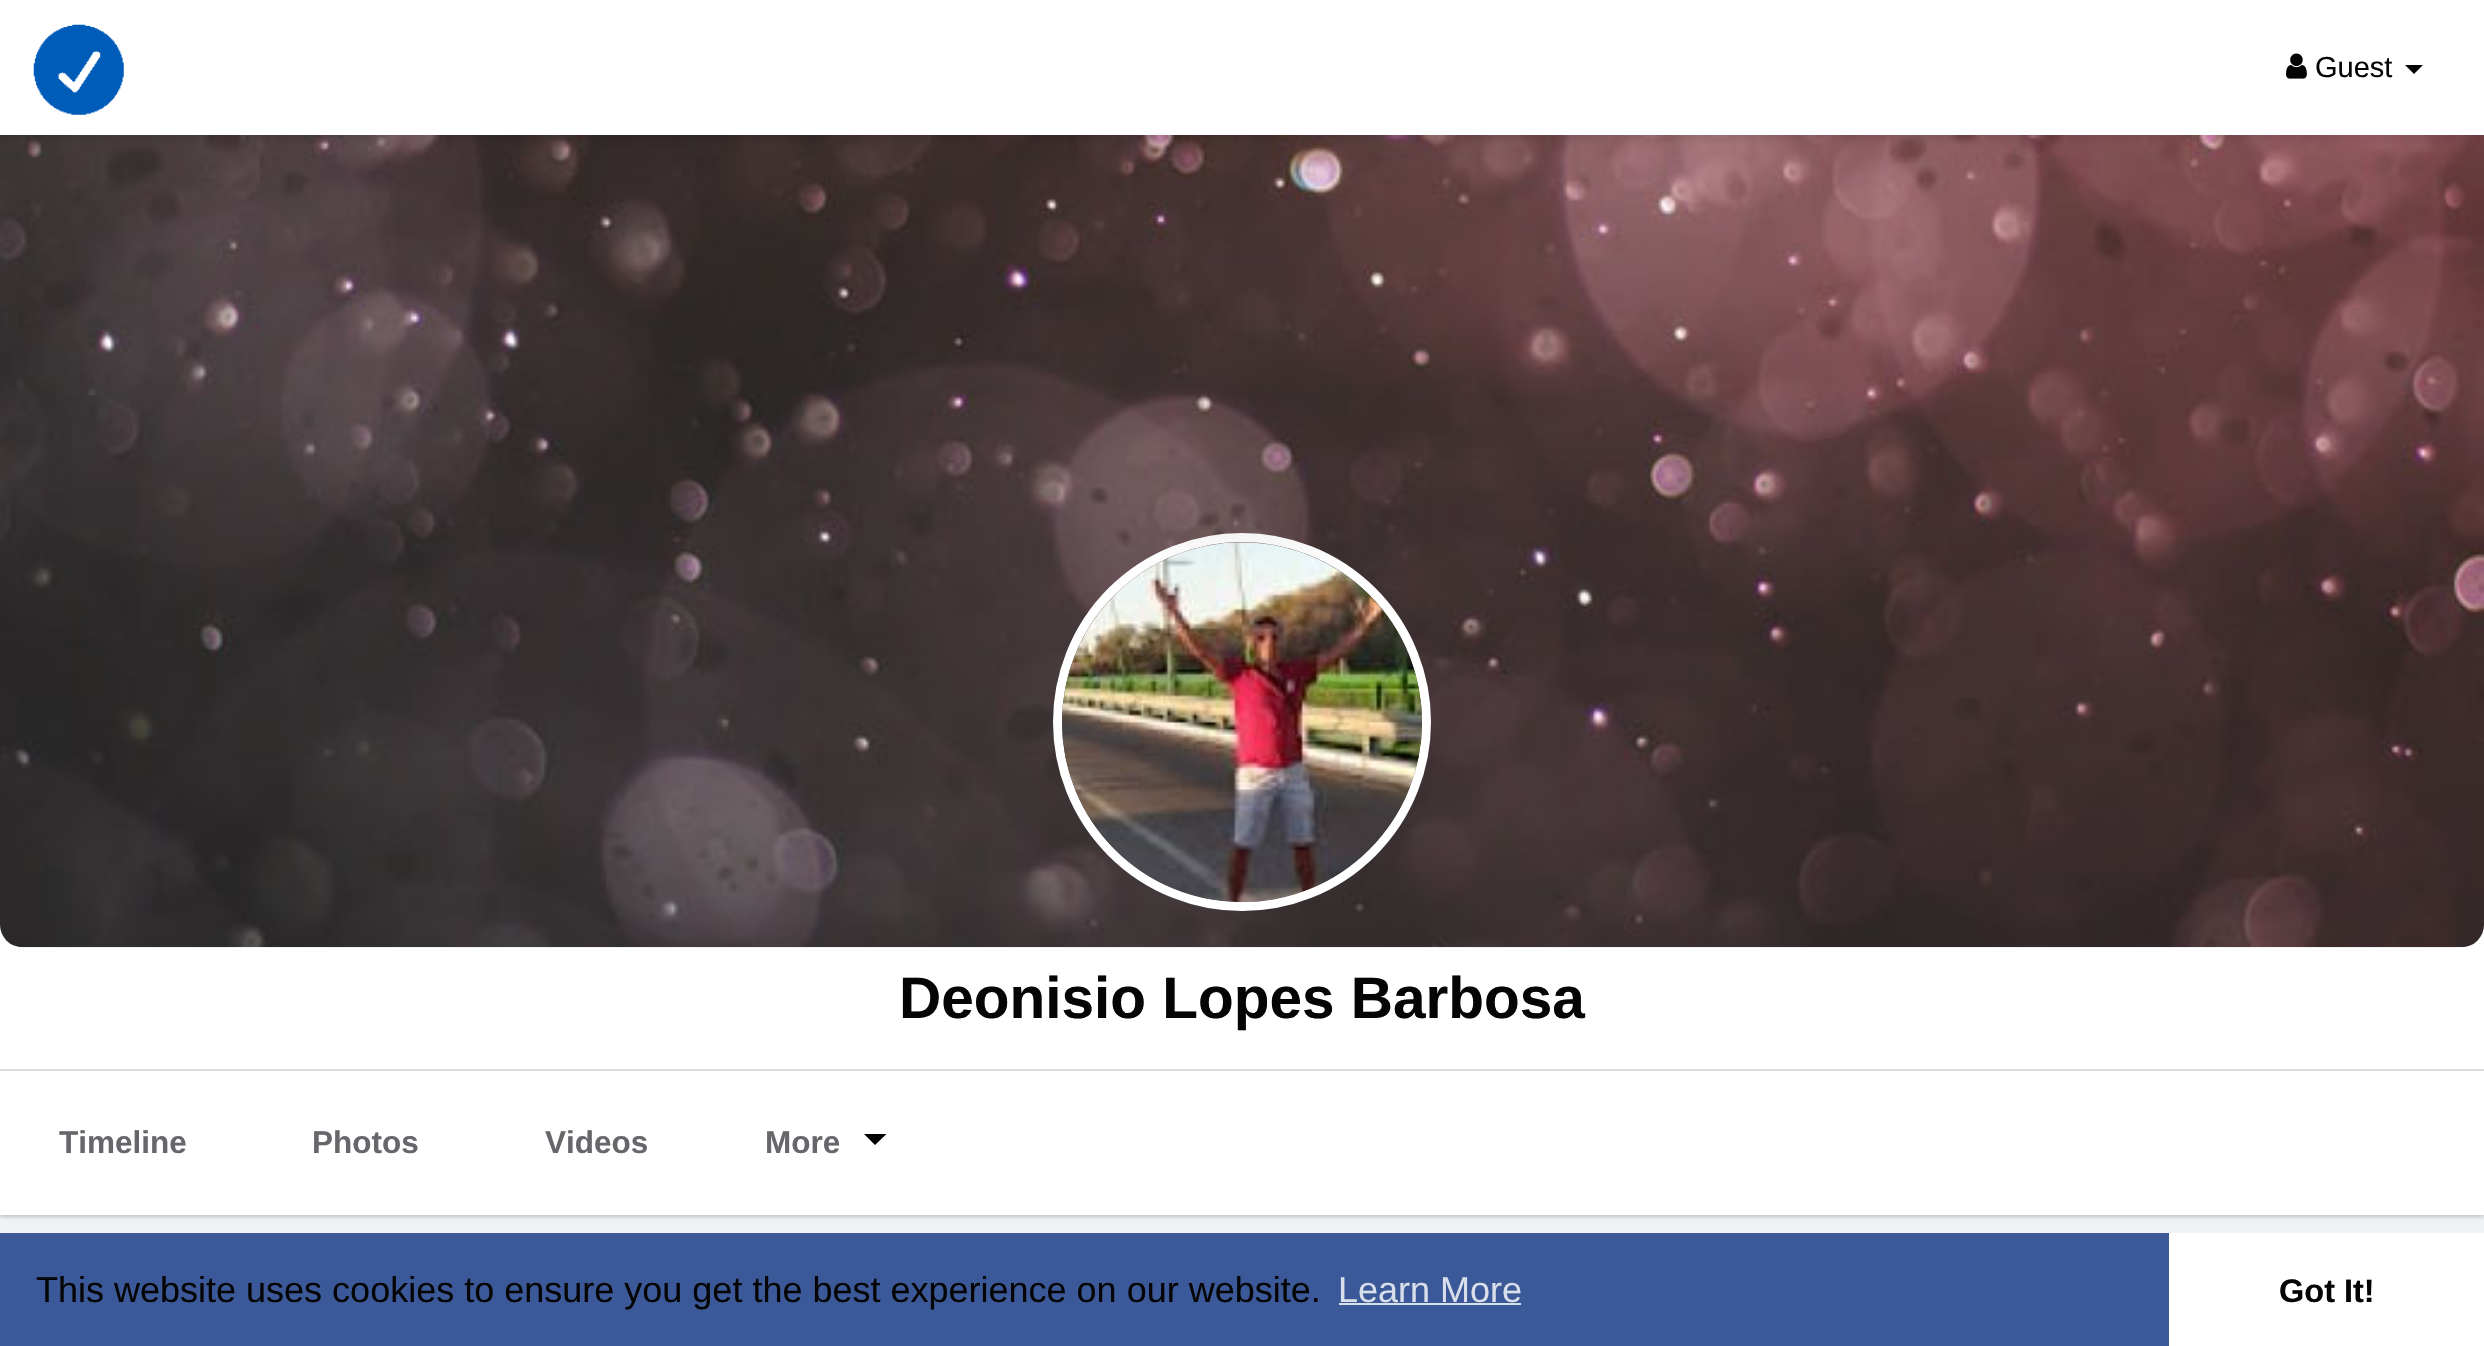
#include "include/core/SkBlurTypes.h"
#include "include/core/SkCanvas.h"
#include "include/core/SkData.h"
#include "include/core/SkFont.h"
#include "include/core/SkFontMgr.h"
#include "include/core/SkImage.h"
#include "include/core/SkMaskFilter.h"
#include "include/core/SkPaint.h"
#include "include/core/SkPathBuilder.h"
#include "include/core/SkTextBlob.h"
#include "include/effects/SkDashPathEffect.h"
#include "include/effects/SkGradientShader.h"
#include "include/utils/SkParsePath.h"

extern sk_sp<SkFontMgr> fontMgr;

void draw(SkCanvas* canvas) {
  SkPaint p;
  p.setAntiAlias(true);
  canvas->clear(SkColorSetRGB(240, 242, 245));
  canvas->save();
  canvas->clipRect(SkRect::MakeLTRB(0, 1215, 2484, 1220));
  p.setColor(SkColorSetARGB(51, 0, 0, 0));
  p.setMaskFilter(SkMaskFilter::MakeBlur(kNormal_SkBlurStyle, 2));
  canvas->drawRect(SkRect::MakeLTRB(0, 2, 2484, 1217), p);
  p.setMaskFilter(nullptr);
  canvas->restore();
  {
    const SkColor colors[] = {SkColorSetARGB(26, 255, 255, 255), SK_ColorWHITE, SK_ColorWHITE};
    const float stops[] = {0, 0.8f, 1};
    const SkPoint ends[] = {{1242, 0}, {1242, 1215}};
    p.setShader(SkGradientShader::MakeLinear(ends, colors, stops, 3, SkTileMode::kClamp));
    p.setAlpha(255);
  }
  canvas->drawRect(SkRect::MakeLTRB(0, 925, 2484, 1215), p);
  canvas->drawImageRect(SkImages::DeferredFromEncodedData(SkData::MakeFromFileName("images/3.png")), SkRect::MakeLTRB(0, 135, 2484, 948), SkSamplingOptions());
  p.setShader(nullptr);
  p.setColor(SkColorSetARGB(26, 0, 0, 0));
  p.setMaskFilter(SkMaskFilter::MakeBlur(kNormal_SkBlurStyle, 4.5f));
  canvas->drawRect(SkRect::MakeLTRB(0, 5, 2484, 140), p);
  p.setMaskFilter(nullptr);
  p.setColor(SK_ColorWHITE);
  canvas->drawRect(SkRect::MakeLTRB(0, 0, 2484, 135), p);
  canvas->drawImageRect(SkImages::DeferredFromEncodedData(SkData::MakeFromFileName("images/1.png")), SkRect::MakeLTRB(33, 24, 124, 115), SkSamplingOptions());
  canvas->drawImageRect(SkImages::DeferredFromEncodedData(SkData::MakeFromFileName("images/2.png")), SkRect::MakeLTRB(2286, 53, 2307, 79), SkSamplingOptions());
  p.setColor(SkColorSetRGB(5, 5, 5));
  canvas->drawPath(SkPathBuilder().moveTo(2405, 65).lineTo(2423, 65).lineTo(2414, 74).close().detach(), p);
  p.setStyle(SkPaint::kStroke_Style);
  p.setStrokeWidth(9);
  p.setColor(SK_ColorWHITE);
  canvas->drawCircle(1242, 722, 184.5f, p);
  canvas->drawImageRect(SkImages::DeferredFromEncodedData(SkData::MakeFromFileName("images/4.png")), SkRect::MakeLTRB(1062, 533, 1422, 903), SkSamplingOptions());
  p.setStyle(SkPaint::kFill_Style);
  p.setColor(SkColorSetRGB(219, 221, 224));
  canvas->drawRect(SkRect::MakeLTRB(0, 1069, 2484, 1071), p);
  p.setColor(SK_ColorBLACK);
  canvas->drawPath(SkPathBuilder().moveTo(864, 1134).lineTo(875, 1145).lineTo(886.5f, 1134).close().detach(), p);
  p.setColor(SkColorSetRGB(59, 89, 152));
  canvas->drawRect(SkRect::MakeLTRB(0, 1233, 2169, 1346), p);
  p.setColor(SkColorSetRGB(216, 222, 234));
  canvas->drawRect(SkRect::MakeLTRB(1339, 1303, 1521, 1305), p);
  p.setColor(SK_ColorWHITE);
  canvas->drawRect(SkRect::MakeLTRB(2169, 1233, 2484, 1346), p);
  SkFont font1(fontMgr->matchFamilyStyle("Liberation Sans", SkFontStyle::Normal()), 29);
  font1.setSubpixel(true);
  p.setColor(SkColorSetRGB(5, 5, 5));
  canvas->drawString("Guest", 2315, 77, font1, p);
  SkFont font2(fontMgr->matchFamilyStyle("Liberation Sans", SkFontStyle::Bold()), 58.5f);
  font2.setSubpixel(true);
  canvas->drawString("Deonisio Lopes Barbosa", 899, 1018, font2, p);
  SkFont font3(fontMgr->matchFamilyStyle("Liberation Sans", SkFontStyle::Bold()), 31.5f);
  font3.setSubpixel(true);
  p.setColor(SkColorSetRGB(101, 103, 107));
  canvas->drawString("Timeline", 59, 1153, font3, p);
  canvas->drawString("Photos", 312, 1153, font3, p);
  canvas->drawString("Videos", 545, 1153, font3, p);
  canvas->drawString("More", 765, 1153, font3, p);
  SkFont font4(fontMgr->matchFamilyStyle("Liberation Sans", SkFontStyle::Normal()), 36);
  font4.setSubpixel(true);
  p.setColor(SkColorSetRGB(5, 5, 5));
  canvas->drawString("This website uses cookies to ensure you get the best experience on our website.", 36, 1302, font4, p);
  p.setColor(SkColorSetRGB(216, 222, 234));
  canvas->drawString("Learn More", 1338, 1302, font4, p);
  SkFont font5(fontMgr->matchFamilyStyle("Liberation Sans", SkFontStyle::Bold()), 32.5f);
  font5.setSubpixel(true);
  p.setColor(SkColorSetRGB(5, 5, 5));
  canvas->drawString("Got It!", 2279, 1302, font5, p);
}
